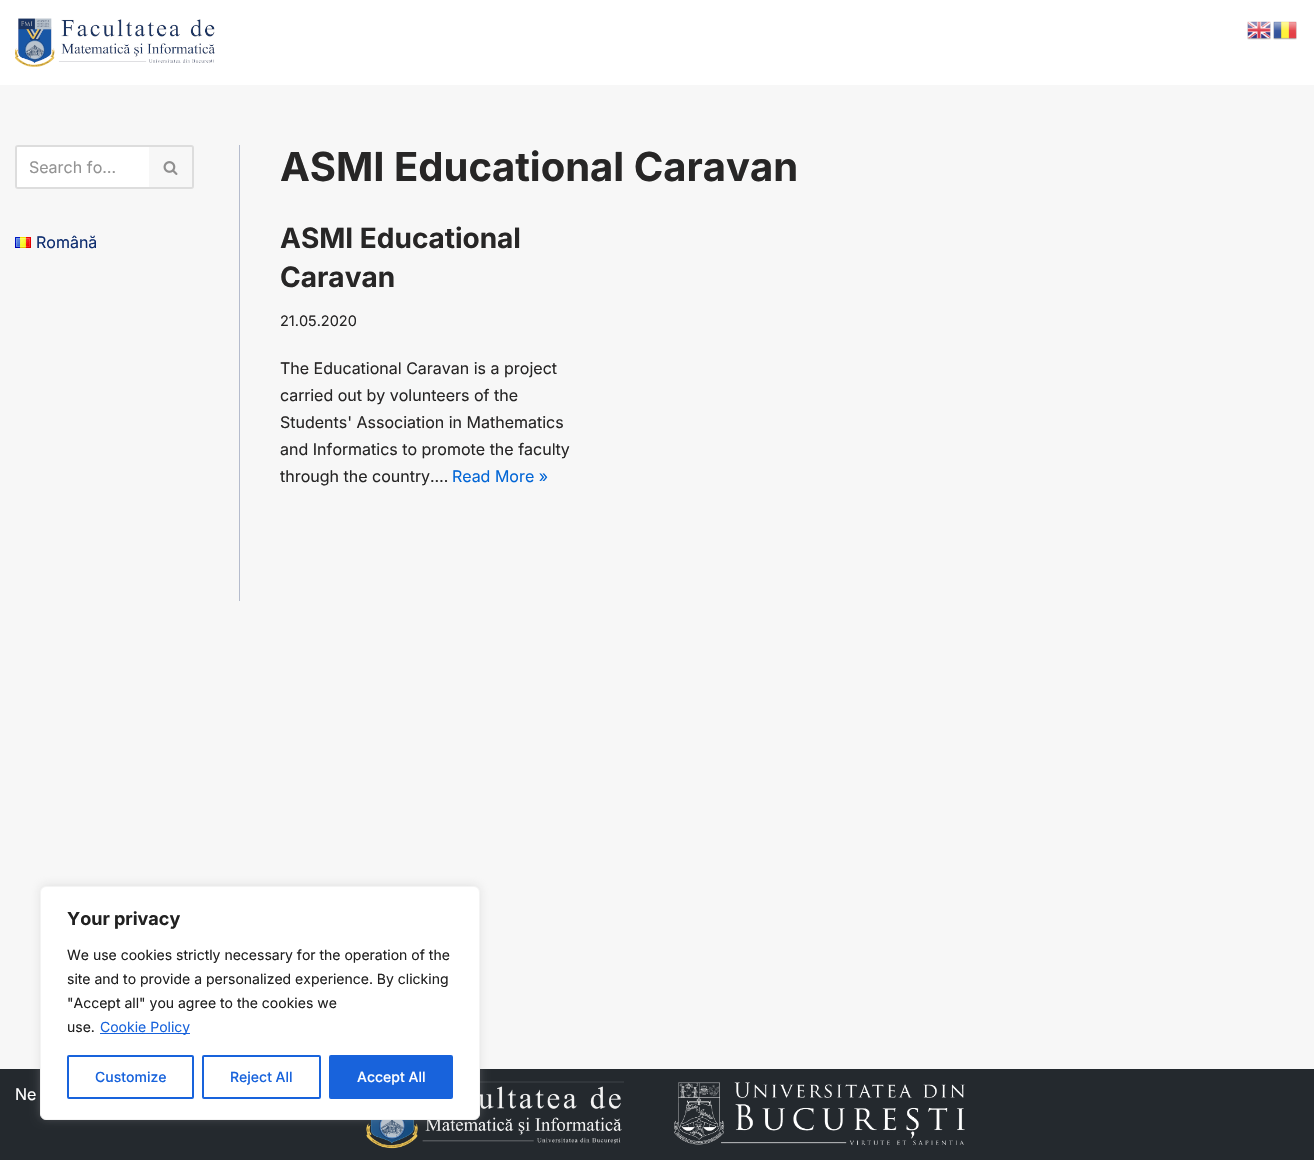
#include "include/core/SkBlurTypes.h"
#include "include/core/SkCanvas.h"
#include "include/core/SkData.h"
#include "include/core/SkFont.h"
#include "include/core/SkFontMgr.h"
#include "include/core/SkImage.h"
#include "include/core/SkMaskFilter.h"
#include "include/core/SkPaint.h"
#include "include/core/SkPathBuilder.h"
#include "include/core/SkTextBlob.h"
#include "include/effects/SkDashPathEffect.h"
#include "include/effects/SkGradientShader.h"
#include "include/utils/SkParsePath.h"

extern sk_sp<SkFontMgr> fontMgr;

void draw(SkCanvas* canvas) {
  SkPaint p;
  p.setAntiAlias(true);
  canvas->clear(SkColorSetRGB(247, 247, 247));
  p.setColor(SK_ColorWHITE);
  canvas->drawRect(SkRect::MakeLTRB(0, 0, 1314, 85), p);
  canvas->drawImageRect(SkImages::DeferredFromEncodedData(SkData::MakeFromFileName("images/1.png")), SkRect::MakeLTRB(1247, 21, 1271, 40), SkSamplingOptions());
  canvas->drawImageRect(SkImages::DeferredFromEncodedData(SkData::MakeFromFileName("images/2.png")), SkRect::MakeLTRB(1273, 21, 1297, 40), SkSamplingOptions());
  canvas->drawImageRect(SkImages::DeferredFromEncodedData(SkData::MakeFromFileName("images/3.png")), SkRect::MakeLTRB(15, 18, 215, 67), SkSamplingOptions());
  p.setColor(SkColorSetRGB(181, 188, 205));
  canvas->drawRect(SkRect::MakeLTRB(239, 145, 240, 601), p);
  p.setColor(SK_ColorWHITE);
  canvas->drawPath(SkPathBuilder().moveTo(18, 145).lineTo(149, 145).lineTo(149, 189).lineTo(18, 189).cubicTo(16.5f, 189, 15, 187.5f, 15, 186).lineTo(15, 148).cubicTo(15, 146.5f, 16.5f, 145, 18, 145).close().detach(), p);
  p.setColor(SkColorSetRGB(221, 221, 221));
  canvas->drawPath(SkPathBuilder(SkPathFillType::kEvenOdd).moveTo(18, 145).lineTo(149, 145).lineTo(149, 189).lineTo(18, 189).cubicTo(16, 189, 15, 188, 15, 186).lineTo(15, 148).cubicTo(15, 146, 16, 145, 18, 145).close().moveTo(18, 147).lineTo(149, 147).lineTo(149, 187).lineTo(18, 187).cubicTo(17, 187, 17, 187, 17, 186).lineTo(17, 148).cubicTo(17, 147, 17, 147, 18, 147).close().detach(), p);
  canvas->drawPath(SkPathBuilder(SkPathFillType::kEvenOdd).moveTo(149, 145).lineTo(191, 145).cubicTo(193, 145, 194, 146, 194, 148).lineTo(194, 186).cubicTo(194, 188, 193, 189, 191, 189).lineTo(149, 189).close().moveTo(149, 147).lineTo(191, 147).cubicTo(192, 147, 192, 147, 192, 148).lineTo(192, 186).cubicTo(192, 187, 192, 187, 191, 187).lineTo(149, 187).close().detach(), p);
  canvas->drawImageRect(SkImages::DeferredFromEncodedData(SkData::MakeFromFileName("images/4.png")), SkRect::MakeLTRB(163, 161, 178, 175), SkSamplingOptions());
  canvas->drawImageRect(SkImages::DeferredFromEncodedData(SkData::MakeFromFileName("images/5.png")), SkRect::MakeLTRB(15, 237, 31, 248), SkSamplingOptions());
  p.setColor(SkColorSetRGB(36, 41, 46));
  canvas->drawRect(SkRect::MakeLTRB(0, 1069, 1314, 1160), p);
  canvas->drawImageRect(SkImages::DeferredFromEncodedData(SkData::MakeFromFileName("images/6.png")), SkRect::MakeLTRB(366, 1081, 624, 1149), SkSamplingOptions());
  canvas->drawImageRect(SkImages::DeferredFromEncodedData(SkData::MakeFromFileName("images/7.png")), SkRect::MakeLTRB(674, 1082, 965, 1145), SkSamplingOptions());
  p.setColor(SkColorSetARGB(77, 172, 171, 171));
  p.setMaskFilter(SkMaskFilter::MakeBlur(kNormal_SkBlurStyle, 5));
  canvas->drawRoundRect(SkRect::MakeLTRB(40, 885, 480, 1119), 6, 6, p);
  p.setMaskFilter(nullptr);
  p.setColor(SK_ColorWHITE);
  canvas->drawRoundRect(SkRect::MakeLTRB(40.5f, 886.5f, 479.5f, 1119.5f), 5.5f, 5.5f, p);
  p.setStyle(SkPaint::kStroke_Style);
  p.setStrokeWidth(1);
  p.setColor(SkColorSetRGB(244, 244, 244));
  canvas->drawRoundRect(SkRect::MakeLTRB(40.5f, 886.5f, 479.5f, 1119.5f), 5.5f, 5.5f, p);
  p.setStyle(SkPaint::kFill_Style);
  p.setColor(SkColorSetRGB(24, 99, 220));
  canvas->drawRect(SkRect::MakeLTRB(100, 1033, 190, 1034), p);
  p.setStyle(SkPaint::kStroke_Style);
  p.setStrokeWidth(2);
  canvas->drawRoundRect(SkRect::MakeLTRB(68, 1056, 193, 1098), 1, 1, p);
  canvas->drawRoundRect(SkRect::MakeLTRB(203, 1056, 320, 1098), 1, 1, p);
  p.setStyle(SkPaint::kFill_Style);
  canvas->drawRoundRect(SkRect::MakeLTRB(330, 1056, 452, 1098), 1, 1, p);
  p.setStyle(SkPaint::kStroke_Style);
  canvas->drawRoundRect(SkRect::MakeLTRB(330, 1056, 452, 1098), 1, 1, p);
  SkFont font1(fontMgr->matchFamilyStyle("Inter", SkFontStyle::Normal()), 16);
  font1.setSubpixel(true);
  p.setStyle(SkPaint::kFill_Style);
  p.setColor(SkColorSetRGB(147, 147, 147));
  canvas->drawString("Search fo…", 29, 173, font1, p);
  p.setColor(SkColorSetRGB(14, 45, 111));
  canvas->drawString("Română", 36, 248, font1, p);
  SkFont font2(fontMgr->matchFamilyStyle("Inter", SkFontStyle::Bold()), 40);
  font2.setSubpixel(true);
  p.setColor(SkColorSetRGB(39, 38, 38));
  canvas->drawString("ASMI Educational Caravan", 280, 181, font2, p);
  SkFont font3(fontMgr->matchFamilyStyle("Inter", SkFontStyle::Bold()), 28);
  font3.setSubpixel(true);
  canvas->drawString("ASMI Educational", 280, 248, font3, p);
  canvas->drawString("Caravan", 280, 287, font3, p);
  SkFont font4(fontMgr->matchFamilyStyle("Inter", SkFontStyle::Normal()), 14.5f);
  font4.setSubpixel(true);
  canvas->drawString("21.05.2020", 280, 326, font4, p);
  canvas->drawString("The Educational Caravan is a project", 280, 374, font1, p);
  canvas->drawString("carried out by volunteers of the", 280, 401, font1, p);
  canvas->drawString("Students' Association in Mathematics", 280, 428, font1, p);
  canvas->drawString("and Informatics to promote the faculty", 280, 455, font1, p);
  canvas->drawString("through the country.…", 280, 482, font1, p);
  p.setColor(SkColorSetRGB(3, 102, 214));
  canvas->drawString("Read More »", 452, 482, font1, p);
  p.setColor(SK_ColorWHITE);
  canvas->drawString("Ne", 15, 1100, font1, p);
  SkFont font5(fontMgr->matchFamilyStyle("Inter", SkFontStyle::Bold()), 18);
  font5.setSubpixel(true);
  p.setColor(SkColorSetRGB(33, 33, 33));
  canvas->drawString("Your privacy", 67, 925, font5, p);
  SkFont font6(fontMgr->matchFamilyStyle("Inter", SkFontStyle::Normal()), 14);
  font6.setSubpixel(true);
  canvas->drawString("We use cookies strictly necessary for the operation of the", 67, 960, font6, p);
  canvas->drawString("site and to provide a personalized experience. By clicking", 67, 984, font6, p);
  canvas->drawString("\"Accept all\" you agree to the cookies we", 67, 1008, font6, p);
  canvas->drawString("use.", 67, 1032, font6, p);
  p.setColor(SkColorSetRGB(24, 99, 220));
  canvas->drawString("Cookie Policy", 100, 1032, font6, p);
  SkFont font7(fontMgr->matchFamilyStyle("Inter", SkFontStyle(500, SkFontStyle::kNormal_Width, SkFontStyle::kUpright_Slant)), 14);
  font7.setSubpixel(true);
  canvas->drawString("Customize", 95, 1082, font7, p);
  canvas->drawString("Reject All", 230, 1082, font7, p);
  p.setColor(SK_ColorWHITE);
  canvas->drawString("Accept All", 357, 1082, font7, p);
}
